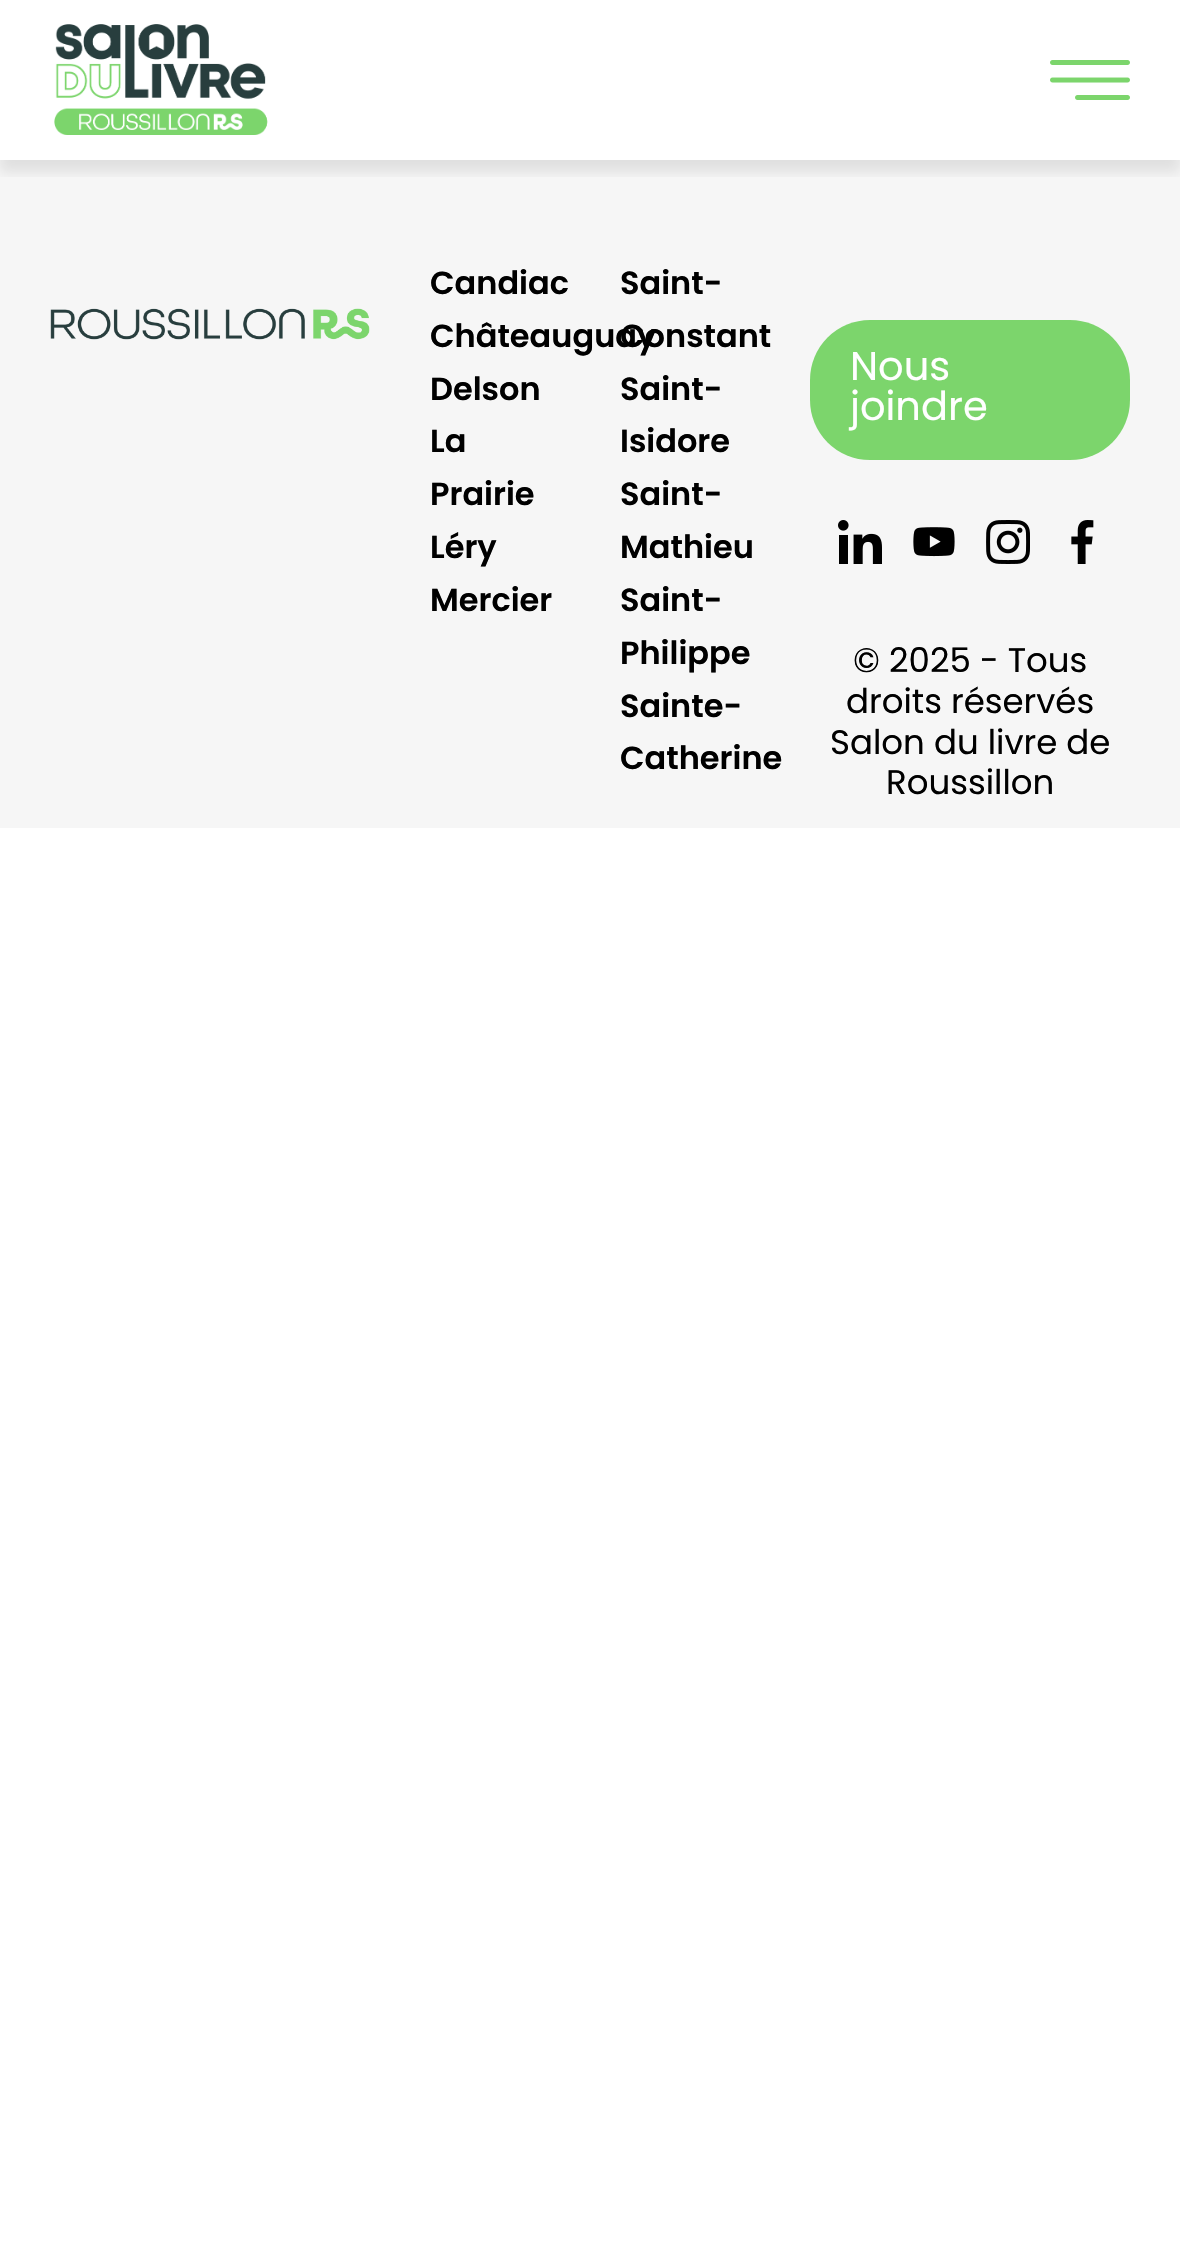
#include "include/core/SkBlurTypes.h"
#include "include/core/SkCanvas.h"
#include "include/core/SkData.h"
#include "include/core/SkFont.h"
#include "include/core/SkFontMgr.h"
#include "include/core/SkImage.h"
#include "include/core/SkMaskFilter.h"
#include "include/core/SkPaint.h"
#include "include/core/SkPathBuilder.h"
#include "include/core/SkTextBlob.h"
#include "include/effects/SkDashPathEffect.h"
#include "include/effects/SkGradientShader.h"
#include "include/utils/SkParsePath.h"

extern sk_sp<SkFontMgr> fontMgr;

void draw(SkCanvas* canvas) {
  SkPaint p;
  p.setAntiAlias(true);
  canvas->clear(SK_ColorWHITE);
  p.setColor(SkColorSetRGB(246, 246, 246));
  canvas->drawRect(SkRect::MakeLTRB(0, 160, 1180, 828), p);
  canvas->save();
  canvas->clipRect(SkRect::MakeLTRB(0, 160, 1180, 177));
  p.setColor(SkColorSetARGB(23, 0, 0, 0));
  p.setMaskFilter(SkMaskFilter::MakeBlur(kNormal_SkBlurStyle, 6));
  canvas->drawRect(SkRect::MakeLTRB(0, 12, 1180, 172), p);
  p.setMaskFilter(nullptr);
  canvas->restore();
  canvas->drawImageRect(SkImages::DeferredFromEncodedData(SkData::MakeFromFileName("images/1.png")), SkRect::MakeLTRB(54, 24, 268, 135), SkSamplingOptions());
  canvas->drawImageRect(SkImages::DeferredFromEncodedData(SkData::MakeFromFileName("images/2.png")), SkRect::MakeLTRB(1050, 60, 1130, 100), SkSamplingOptions());
  canvas->drawImageRect(SkImages::DeferredFromEncodedData(SkData::MakeFromFileName("images/3.png")), SkRect::MakeLTRB(50, 308, 370, 340), SkSamplingOptions());
  p.setColor(SkColorSetRGB(124, 213, 108));
  canvas->drawRoundRect(SkRect::MakeLTRB(810, 320, 1130, 460), 60, 60, p);
  canvas->drawImageRect(SkImages::DeferredFromEncodedData(SkData::MakeFromFileName("images/4.png")), SkRect::MakeLTRB(838, 520, 882, 564), SkSamplingOptions());
  canvas->drawImageRect(SkImages::DeferredFromEncodedData(SkData::MakeFromFileName("images/5.png")), SkRect::MakeLTRB(913, 527, 955, 557), SkSamplingOptions());
  canvas->drawImageRect(SkImages::DeferredFromEncodedData(SkData::MakeFromFileName("images/6.png")), SkRect::MakeLTRB(986, 520, 1030, 564), SkSamplingOptions());
  canvas->drawImageRect(SkImages::DeferredFromEncodedData(SkData::MakeFromFileName("images/7.png")), SkRect::MakeLTRB(1071, 520, 1094, 564), SkSamplingOptions());
  SkFont font1(fontMgr->matchFamilyStyle("Poppins", SkFontStyle(600, SkFontStyle::kNormal_Width, SkFontStyle::kUpright_Slant)), 32);
  font1.setSubpixel(true);
  p.setColor(SK_ColorBLACK);
  canvas->drawString("Candiac", 430, 294, font1, p);
  canvas->drawString("Châteauguay", 430, 347, font1, p);
  canvas->drawString("Delson", 430, 400, font1, p);
  canvas->drawString("La", 430, 452, font1, p);
  canvas->drawString("Prairie", 430, 505, font1, p);
  canvas->drawString("Léry", 430, 558, font1, p);
  canvas->drawString("Mercier", 430, 611, font1, p);
  canvas->drawString("Saint-", 620, 294, font1, p);
  canvas->drawString("Constant", 620, 347, font1, p);
  canvas->drawString("Saint-", 620, 400, font1, p);
  canvas->drawString("Isidore", 620, 452, font1, p);
  canvas->drawString("Saint-", 620, 505, font1, p);
  canvas->drawString("Mathieu", 620, 558, font1, p);
  canvas->drawString("Saint-", 620, 611, font1, p);
  canvas->drawString("Philippe", 620, 664, font1, p);
  canvas->drawString("Sainte-", 620, 717, font1, p);
  canvas->drawString("Catherine", 620, 769, font1, p);
  SkFont font2(fontMgr->matchFamilyStyle("Poppins", SkFontStyle::Normal()), 40);
  font2.setSubpixel(true);
  p.setColor(SK_ColorWHITE);
  canvas->drawString("Nous", 850, 380, font2, p);
  canvas->drawString("joindre", 850, 420, font2, p);
  SkFont font3(fontMgr->matchFamilyStyle("Poppins", SkFontStyle::Normal()), 34);
  font3.setSubpixel(true);
  p.setColor(SK_ColorBLACK);
  canvas->drawString("© 2025 - Tous", 853, 672, font3, p);
  canvas->drawString("droits réservés", 846, 713, font3, p);
  canvas->drawString("Salon du livre de", 830, 754, font3, p);
  canvas->drawString("Roussillon", 886, 794, font3, p);
}
